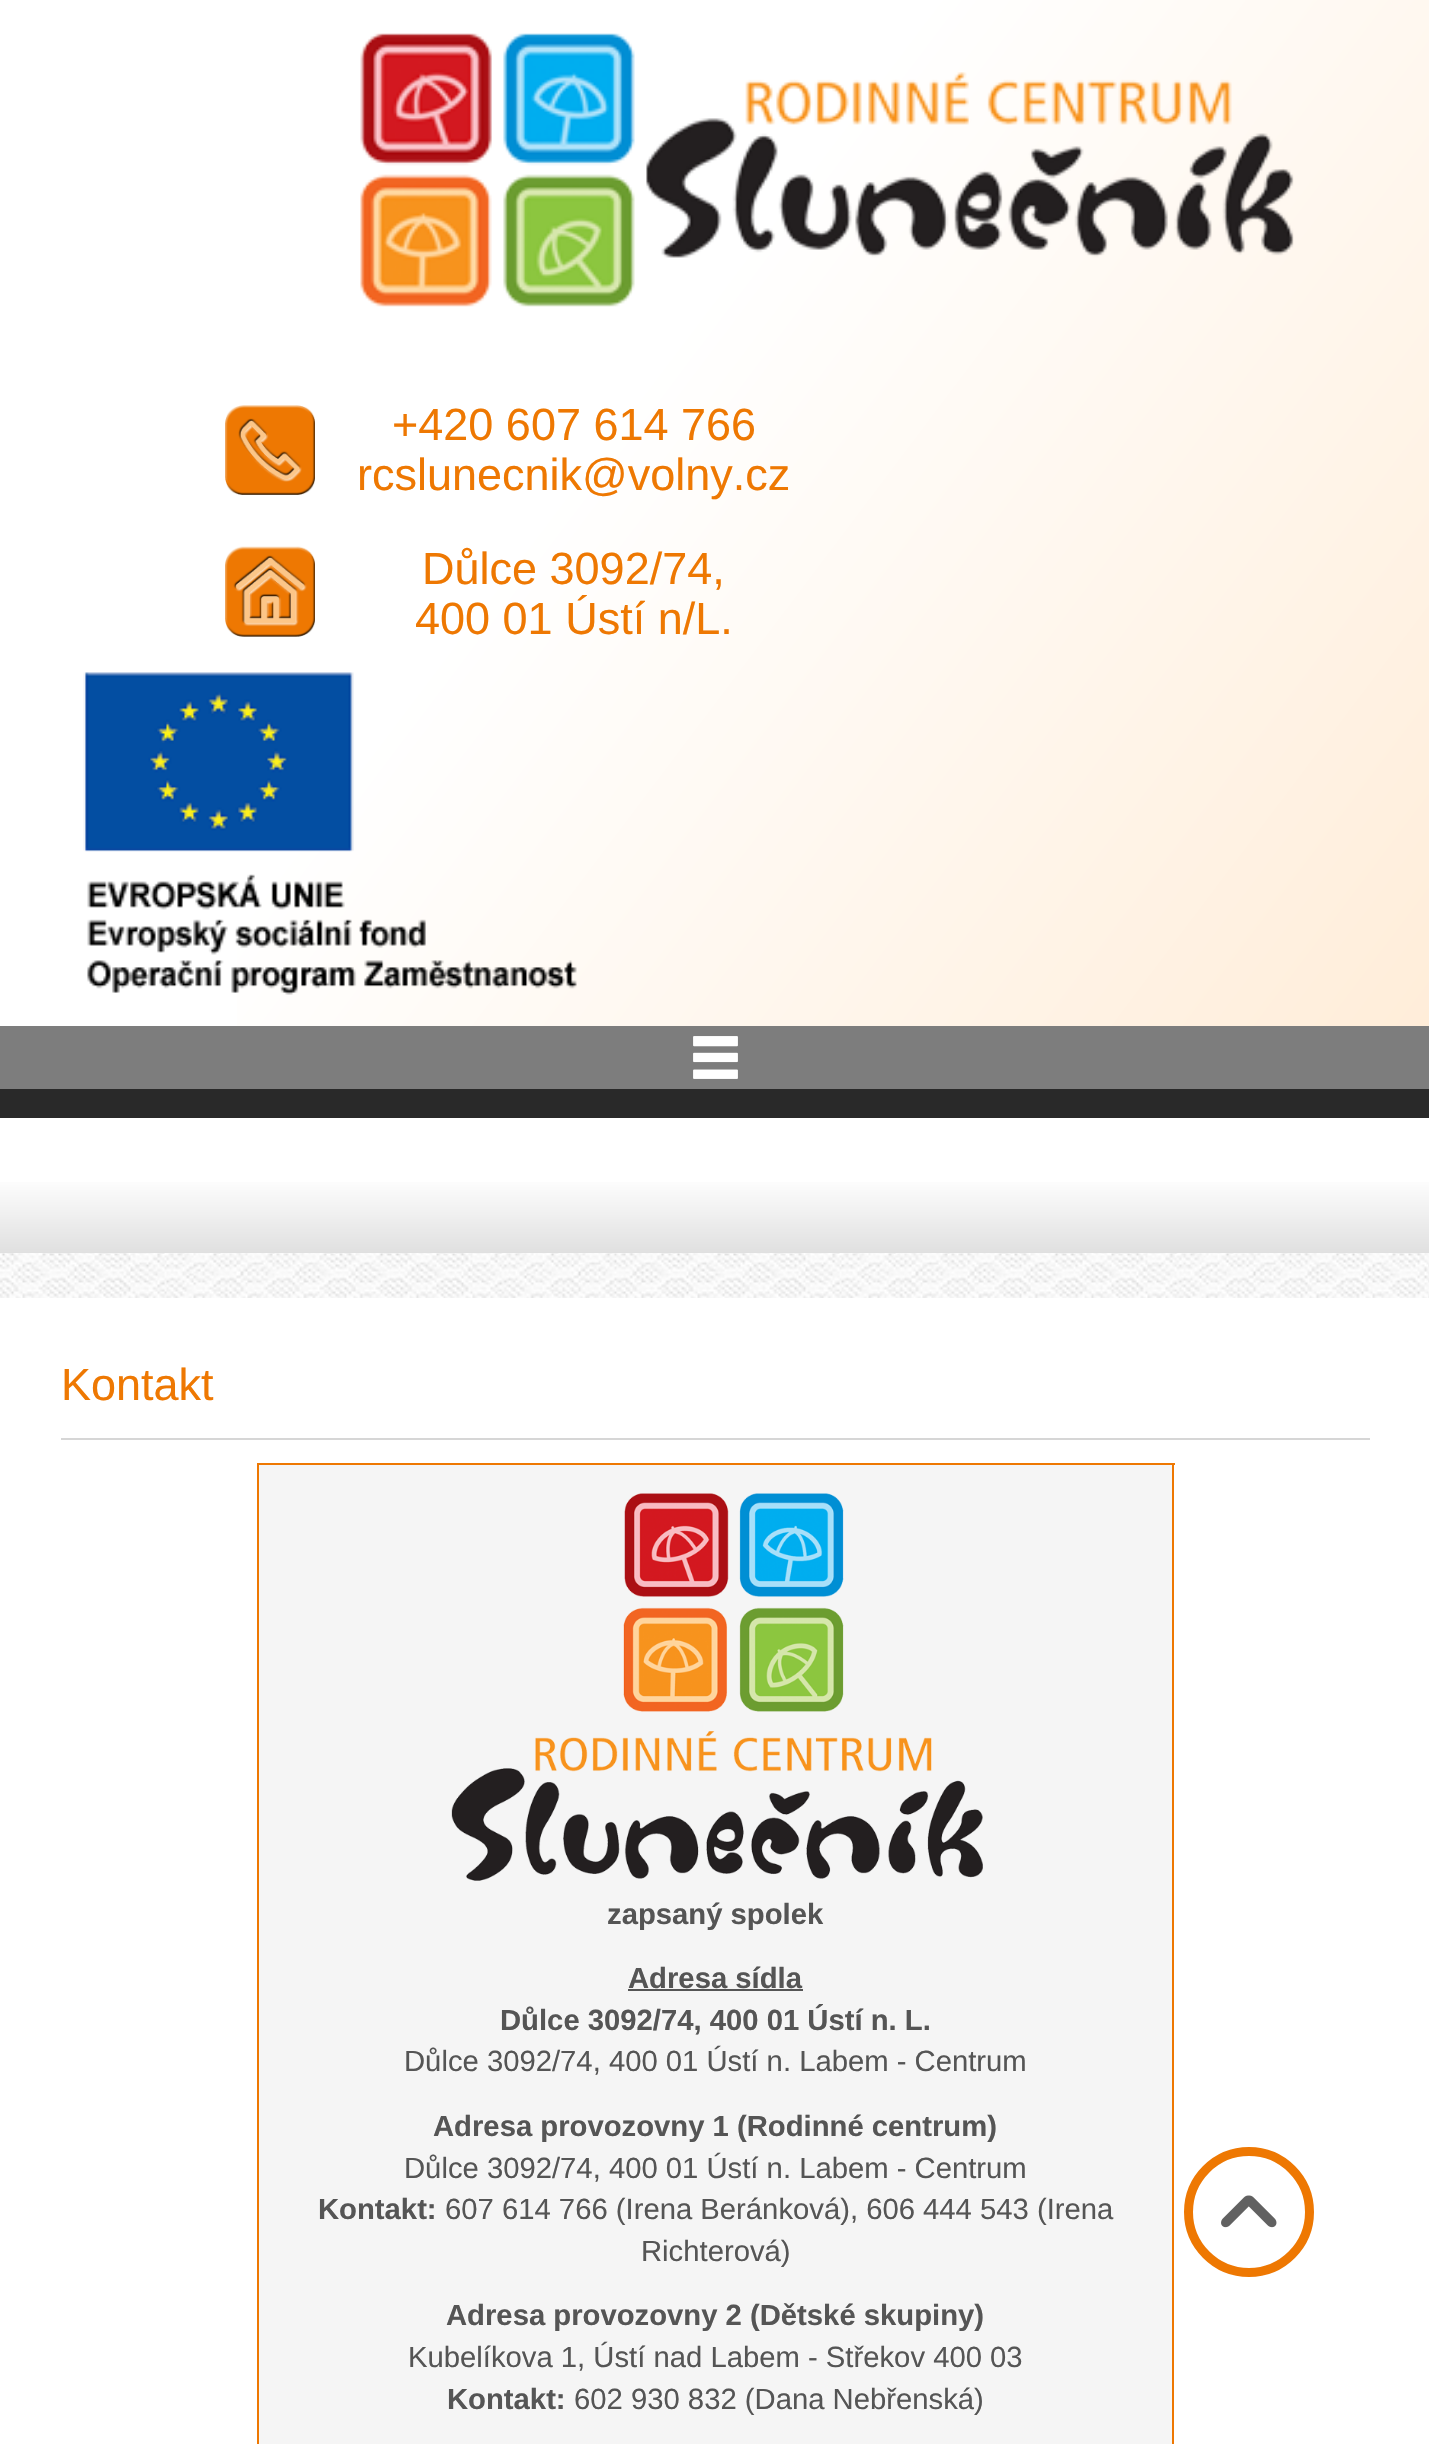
#include "include/core/SkBlurTypes.h"
#include "include/core/SkCanvas.h"
#include "include/core/SkData.h"
#include "include/core/SkFont.h"
#include "include/core/SkFontMgr.h"
#include "include/core/SkImage.h"
#include "include/core/SkMaskFilter.h"
#include "include/core/SkPaint.h"
#include "include/core/SkPathBuilder.h"
#include "include/core/SkTextBlob.h"
#include "include/effects/SkDashPathEffect.h"
#include "include/effects/SkGradientShader.h"
#include "include/utils/SkParsePath.h"

extern sk_sp<SkFontMgr> fontMgr;

void draw(SkCanvas* canvas) {
  SkPaint p;
  p.setAntiAlias(true);
  canvas->clear(SK_ColorWHITE);
  canvas->drawImageRect(SkImages::DeferredFromEncodedData(SkData::MakeFromFileName("images/1.png")), SkRect::MakeLTRB(0, 1253, 1429, 1298), SkSamplingOptions());
  p.setColor(SkColorSetRGB(41, 41, 41));
  canvas->drawRect(SkRect::MakeLTRB(0, 1089, 1429, 1118), p);
  {
    const SkColor colors[] = {SkColorSetRGB(255, 237, 217), SK_ColorWHITE};
    const float stops[] = {0, 0.58f};
    const SkPoint ends[] = {{1418, 1043}, {13, -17}};
    p.setShader(SkGradientShader::MakeLinear(ends, colors, stops, 2, SkTileMode::kClamp));
    p.setAlpha(255);
  }
  canvas->drawRect(SkRect::MakeLTRB(237, 0, 1429, 1026), p);
  canvas->drawImageRect(SkImages::DeferredFromEncodedData(SkData::MakeFromFileName("images/2.png")), SkRect::MakeLTRB(360, 33, 1294, 307), SkSamplingOptions());
  canvas->drawImageRect(SkImages::DeferredFromEncodedData(SkData::MakeFromFileName("images/3.png")), SkRect::MakeLTRB(225, 405, 315, 495), SkSamplingOptions());
  canvas->drawImageRect(SkImages::DeferredFromEncodedData(SkData::MakeFromFileName("images/4.png")), SkRect::MakeLTRB(225, 546, 315, 637), SkSamplingOptions());
  canvas->drawImageRect(SkImages::DeferredFromEncodedData(SkData::MakeFromFileName("images/5.png")), SkRect::MakeLTRB(83, 672, 577, 995), SkSamplingOptions());
  p.setShader(nullptr);
  p.setColor(SkColorSetRGB(125, 125, 125));
  canvas->drawRect(SkRect::MakeLTRB(0, 1026, 1429, 1089), p);
  canvas->drawImageRect(SkImages::DeferredFromEncodedData(SkData::MakeFromFileName("images/6.png")), SkRect::MakeLTRB(693, 1036, 738, 1079), SkSamplingOptions());
  {
    const SkColor colors[] = {SkColorSetRGB(224, 224, 224), SK_ColorWHITE};
    const float stops[] = {0, 0.57f};
    const SkPoint ends[] = {{716, 1253}, {716, 1118}};
    p.setShader(SkGradientShader::MakeLinear(ends, colors, stops, 2, SkTileMode::kClamp));
    p.setAlpha(255);
  }
  canvas->drawRect(SkRect::MakeLTRB(0, 1182, 1429, 1253), p);
  p.setShader(nullptr);
  p.setColor(SkColorSetRGB(214, 214, 214));
  canvas->drawRect(SkRect::MakeLTRB(61, 1438, 1370, 1440), p);
  p.setColor(SkColorSetRGB(238, 120, 2));
  canvas->drawRect(SkRect::MakeLTRB(257, 1463, 1175, 1465), p);
  canvas->drawRect(SkRect::MakeLTRB(1172, 1463, 1174, 2444), p);
  canvas->drawRect(SkRect::MakeLTRB(257, 1463, 259, 2444), p);
  p.setColor(SkColorSetRGB(245, 245, 245));
  canvas->drawRect(SkRect::MakeLTRB(259, 1465, 1172, 2444), p);
  canvas->drawImageRect(SkImages::DeferredFromEncodedData(SkData::MakeFromFileName("images/7.png")), SkRect::MakeLTRB(451, 1493, 983, 1881), SkSamplingOptions());
  p.setColor(SkColorSetRGB(85, 85, 85));
  canvas->drawRect(SkRect::MakeLTRB(628, 1989, 803, 1991), p);
  p.setStyle(SkPaint::kStroke_Style);
  p.setStrokeWidth(9);
  p.setColor(SkColorSetRGB(238, 120, 2));
  canvas->drawCircle(1249, 2212, 60.5f, p);
  canvas->drawImageRect(SkImages::DeferredFromEncodedData(SkData::MakeFromFileName("images/8.png")), SkRect::MakeLTRB(1221, 2195, 1277, 2228), SkSamplingOptions());
  SkFont font1(fontMgr->matchFamilyStyle("Liberation Sans", SkFontStyle::Normal()), 45);
  font1.setSubpixel(true);
  p.setStyle(SkPaint::kFill_Style);
  canvas->drawString("+420 607 614 766", 392, 440, font1, p);
  canvas->drawString("rcslunecnik@volny.cz", 357, 490, font1, p);
  canvas->drawString("Důlce 3092/74,", 422, 584, font1, p);
  canvas->drawString("400 01 Ústí n/L.", 415, 634, font1, p);
  canvas->drawString("Kontakt", 61, 1400, font1, p);
  SkFont font2(fontMgr->matchFamilyStyle("Liberation Sans", SkFontStyle::Bold()), 29.25f);
  font2.setSubpixel(true);
  p.setColor(SkColorSetRGB(85, 85, 85));
  canvas->drawString("zapsaný spolek", 607, 1924, font2, p);
  canvas->drawString("Adresa sídla", 628, 1988, font2, p);
  canvas->drawString("Důlce 3092/74, 400 01 Ústí n. L.", 500, 2030, font2, p);
  SkFont font3(fontMgr->matchFamilyStyle("Liberation Sans", SkFontStyle::Normal()), 29.25f);
  font3.setSubpixel(true);
  canvas->drawString("Důlce 3092/74, 400 01 Ústí n. Labem - Centrum", 404, 2071, font3, p);
  canvas->drawString("Adresa provozovny 1 (Rodinné centrum)", 433, 2136, font2, p);
  canvas->drawString("Důlce 3092/74, 400 01 Ústí n. Labem - Centrum", 404, 2178, font3, p);
  canvas->drawString("Kontakt:", 318, 2219, font2, p);
  canvas->drawString("607 614 766 (Irena Beránková), 606 444 543 (Irena", 445, 2219, font3, p);
  canvas->drawString("Richterová)", 641, 2261, font3, p);
  canvas->drawString("Adresa provozovny 2 (Dětské skupiny)", 446, 2325, font2, p);
  canvas->drawString("Kubelíkova 1, Ústí nad Labem - Střekov 400 03", 408, 2367, font3, p);
  canvas->drawString("Kontakt:", 447, 2409, font2, p);
  canvas->drawString("602 930 832 (Dana Nebřenská)", 574, 2409, font3, p);
}
